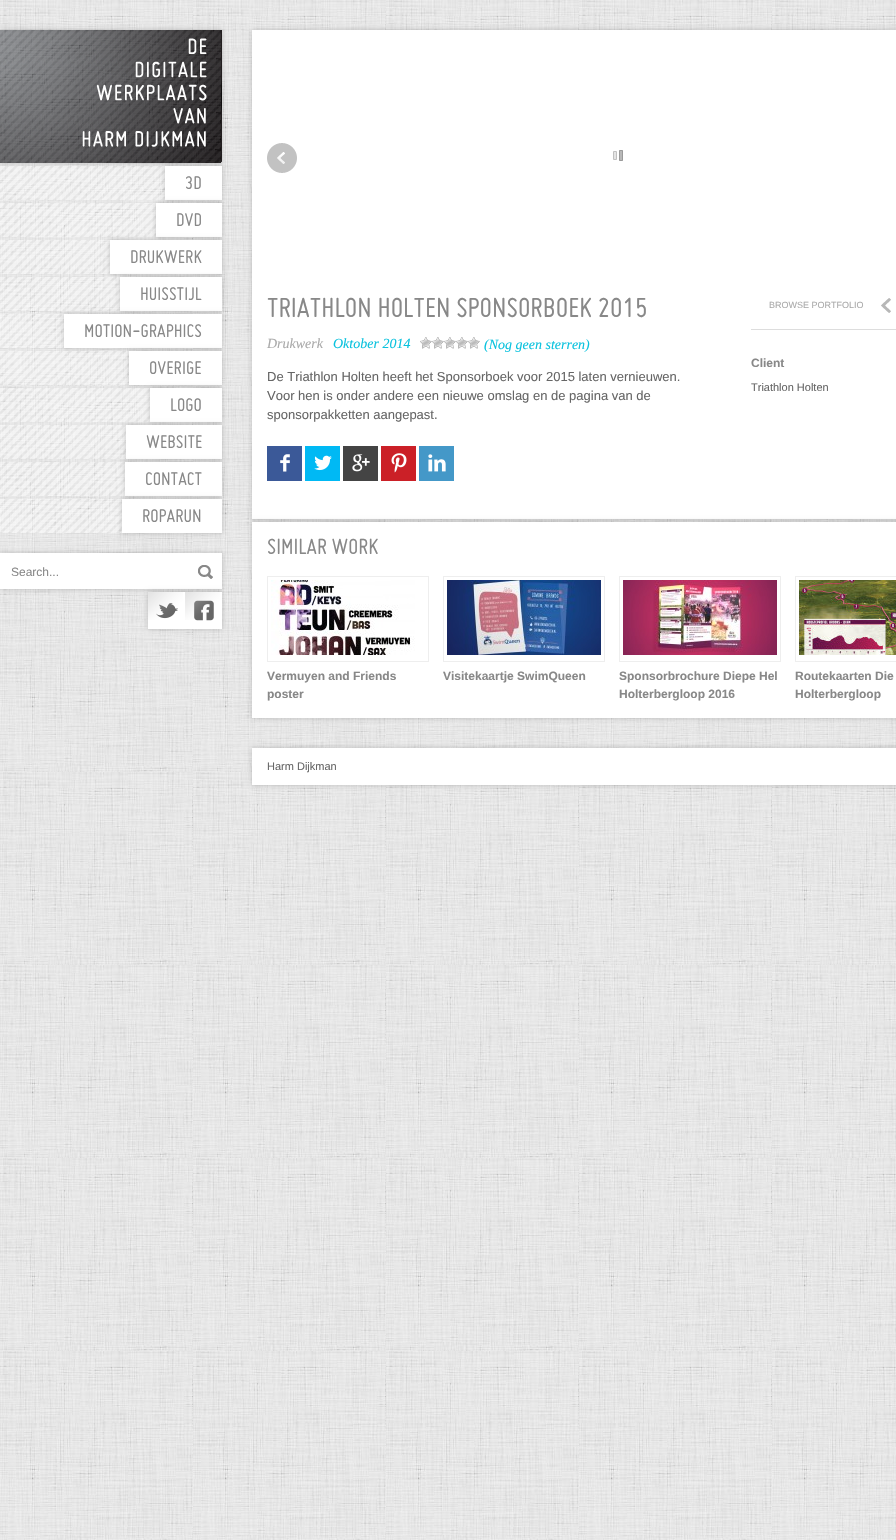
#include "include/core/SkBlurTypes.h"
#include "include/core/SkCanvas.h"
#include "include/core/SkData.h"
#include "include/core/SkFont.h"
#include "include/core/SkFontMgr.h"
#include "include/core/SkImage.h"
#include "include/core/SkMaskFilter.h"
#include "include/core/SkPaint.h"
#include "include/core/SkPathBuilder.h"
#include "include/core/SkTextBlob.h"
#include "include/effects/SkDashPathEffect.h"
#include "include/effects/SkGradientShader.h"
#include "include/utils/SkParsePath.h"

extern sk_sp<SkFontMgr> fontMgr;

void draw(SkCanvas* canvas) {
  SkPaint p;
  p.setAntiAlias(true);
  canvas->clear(SK_ColorWHITE);
  canvas->drawImageRect(SkImages::DeferredFromEncodedData(SkData::MakeFromFileName("images/1.png")), SkRect::MakeLTRB(0, 0, 896, 1540), SkSamplingOptions());
  p.setColor(SkColorSetARGB(51, 0, 0, 0));
  p.setMaskFilter(SkMaskFilter::MakeBlur(kNormal_SkBlurStyle, 2.5f));
  canvas->drawRect(SkRect::MakeLTRB(0, 30, 222, 163), p);
  p.setMaskFilter(nullptr);
  p.setColor(SK_ColorWHITE);
  canvas->drawRect(SkRect::MakeLTRB(221, 161, 222, 163), p);
  canvas->drawImageRect(SkImages::DeferredFromEncodedData(SkData::MakeFromFileName("images/2.png")), SkRect::MakeLTRB(0, 30, 222, 163), SkSamplingOptions());
  canvas->drawImageRect(SkImages::DeferredFromEncodedData(SkData::MakeFromFileName("images/3.png")), SkRect::MakeLTRB(0, 166, 165, 200), SkSamplingOptions());
  p.setColor(SkColorSetARGB(51, 0, 0, 0));
  p.setMaskFilter(SkMaskFilter::MakeBlur(kNormal_SkBlurStyle, 2.5f));
  canvas->drawRect(SkRect::MakeLTRB(165, 166, 222, 200), p);
  p.setMaskFilter(nullptr);
  p.setColor(SK_ColorWHITE);
  canvas->drawRect(SkRect::MakeLTRB(165, 166, 222, 200), p);
  canvas->drawImageRect(SkImages::DeferredFromEncodedData(SkData::MakeFromFileName("images/4.png")), SkRect::MakeLTRB(0, 203, 156, 237), SkSamplingOptions());
  p.setColor(SkColorSetARGB(51, 0, 0, 0));
  p.setMaskFilter(SkMaskFilter::MakeBlur(kNormal_SkBlurStyle, 2.5f));
  canvas->drawRect(SkRect::MakeLTRB(156, 203, 222, 237), p);
  p.setMaskFilter(nullptr);
  p.setColor(SK_ColorWHITE);
  canvas->drawRect(SkRect::MakeLTRB(156, 203, 222, 237), p);
  canvas->drawImageRect(SkImages::DeferredFromEncodedData(SkData::MakeFromFileName("images/5.png")), SkRect::MakeLTRB(0, 240, 110, 274), SkSamplingOptions());
  p.setColor(SkColorSetARGB(51, 0, 0, 0));
  p.setMaskFilter(SkMaskFilter::MakeBlur(kNormal_SkBlurStyle, 2.5f));
  canvas->drawRect(SkRect::MakeLTRB(110, 240, 222, 274), p);
  p.setMaskFilter(nullptr);
  p.setColor(SK_ColorWHITE);
  canvas->drawRect(SkRect::MakeLTRB(110, 240, 222, 274), p);
  canvas->drawImageRect(SkImages::DeferredFromEncodedData(SkData::MakeFromFileName("images/6.png")), SkRect::MakeLTRB(0, 277, 120, 311), SkSamplingOptions());
  p.setColor(SkColorSetARGB(51, 0, 0, 0));
  p.setMaskFilter(SkMaskFilter::MakeBlur(kNormal_SkBlurStyle, 2.5f));
  canvas->drawRect(SkRect::MakeLTRB(120, 277, 222, 311), p);
  p.setMaskFilter(nullptr);
  p.setColor(SK_ColorWHITE);
  canvas->drawRect(SkRect::MakeLTRB(120, 277, 222, 311), p);
  canvas->drawImageRect(SkImages::DeferredFromEncodedData(SkData::MakeFromFileName("images/7.png")), SkRect::MakeLTRB(0, 314, 64, 348), SkSamplingOptions());
  p.setColor(SkColorSetARGB(51, 0, 0, 0));
  p.setMaskFilter(SkMaskFilter::MakeBlur(kNormal_SkBlurStyle, 2.5f));
  canvas->drawRect(SkRect::MakeLTRB(64, 314, 222, 348), p);
  p.setMaskFilter(nullptr);
  p.setColor(SK_ColorWHITE);
  canvas->drawRect(SkRect::MakeLTRB(64, 314, 222, 348), p);
  canvas->drawImageRect(SkImages::DeferredFromEncodedData(SkData::MakeFromFileName("images/8.png")), SkRect::MakeLTRB(0, 351, 129, 385), SkSamplingOptions());
  p.setColor(SkColorSetARGB(51, 0, 0, 0));
  p.setMaskFilter(SkMaskFilter::MakeBlur(kNormal_SkBlurStyle, 2.5f));
  canvas->drawRect(SkRect::MakeLTRB(129, 351, 222, 385), p);
  p.setMaskFilter(nullptr);
  p.setColor(SK_ColorWHITE);
  canvas->drawRect(SkRect::MakeLTRB(129, 351, 222, 385), p);
  canvas->drawImageRect(SkImages::DeferredFromEncodedData(SkData::MakeFromFileName("images/9.png")), SkRect::MakeLTRB(0, 388, 150, 422), SkSamplingOptions());
  p.setColor(SkColorSetARGB(51, 0, 0, 0));
  p.setMaskFilter(SkMaskFilter::MakeBlur(kNormal_SkBlurStyle, 2.5f));
  canvas->drawRect(SkRect::MakeLTRB(150, 388, 222, 422), p);
  p.setMaskFilter(nullptr);
  p.setColor(SK_ColorWHITE);
  canvas->drawRect(SkRect::MakeLTRB(150, 388, 222, 422), p);
  canvas->drawImageRect(SkImages::DeferredFromEncodedData(SkData::MakeFromFileName("images/10.png")), SkRect::MakeLTRB(0, 425, 126, 459), SkSamplingOptions());
  p.setColor(SkColorSetARGB(51, 0, 0, 0));
  p.setMaskFilter(SkMaskFilter::MakeBlur(kNormal_SkBlurStyle, 2.5f));
  canvas->drawRect(SkRect::MakeLTRB(126, 425, 222, 459), p);
  p.setMaskFilter(nullptr);
  p.setColor(SK_ColorWHITE);
  canvas->drawRect(SkRect::MakeLTRB(126, 425, 222, 459), p);
  canvas->drawImageRect(SkImages::DeferredFromEncodedData(SkData::MakeFromFileName("images/11.png")), SkRect::MakeLTRB(0, 462, 125, 496), SkSamplingOptions());
  p.setColor(SkColorSetARGB(51, 0, 0, 0));
  p.setMaskFilter(SkMaskFilter::MakeBlur(kNormal_SkBlurStyle, 2.5f));
  canvas->drawRect(SkRect::MakeLTRB(125, 462, 222, 496), p);
  p.setMaskFilter(nullptr);
  p.setColor(SK_ColorWHITE);
  canvas->drawRect(SkRect::MakeLTRB(125, 462, 222, 496), p);
  canvas->drawImageRect(SkImages::DeferredFromEncodedData(SkData::MakeFromFileName("images/12.png")), SkRect::MakeLTRB(0, 499, 122, 533), SkSamplingOptions());
  p.setColor(SkColorSetARGB(51, 0, 0, 0));
  p.setMaskFilter(SkMaskFilter::MakeBlur(kNormal_SkBlurStyle, 2.5f));
  canvas->drawRect(SkRect::MakeLTRB(122, 499, 222, 533), p);
  p.setMaskFilter(nullptr);
  p.setColor(SK_ColorWHITE);
  canvas->drawRect(SkRect::MakeLTRB(122, 499, 222, 533), p);
  p.setColor(SkColorSetARGB(51, 0, 0, 0));
  p.setMaskFilter(SkMaskFilter::MakeBlur(kNormal_SkBlurStyle, 2.5f));
  canvas->drawRect(SkRect::MakeLTRB(0, 553, 222, 589), p);
  p.setMaskFilter(nullptr);
  p.setColor(SK_ColorWHITE);
  canvas->drawRect(SkRect::MakeLTRB(0, 553, 222, 589), p);
  canvas->drawImageRect(SkImages::DeferredFromEncodedData(SkData::MakeFromFileName("images/13.png")), SkRect::MakeLTRB(198, 565, 213, 579), SkSamplingOptions());
  p.setColor(SkColorSetARGB(51, 0, 0, 0));
  p.setMaskFilter(SkMaskFilter::MakeBlur(kNormal_SkBlurStyle, 2.5f));
  canvas->drawRect(SkRect::MakeLTRB(148, 592, 222, 629), p);
  p.setMaskFilter(nullptr);
  p.setColor(SK_ColorWHITE);
  canvas->drawRect(SkRect::MakeLTRB(148, 592, 222, 629), p);
  canvas->drawImageRect(SkImages::DeferredFromEncodedData(SkData::MakeFromFileName("images/14.png")), SkRect::MakeLTRB(156, 603, 178, 619), SkSamplingOptions());
  canvas->drawImageRect(SkImages::DeferredFromEncodedData(SkData::MakeFromFileName("images/15.png")), SkRect::MakeLTRB(148, 592, 183, 620), SkSamplingOptions());
  canvas->drawImageRect(SkImages::DeferredFromEncodedData(SkData::MakeFromFileName("images/16.png")), SkRect::MakeLTRB(194, 600, 214, 621), SkSamplingOptions());
  canvas->drawImageRect(SkImages::DeferredFromEncodedData(SkData::MakeFromFileName("images/17.png")), SkRect::MakeLTRB(185, 592, 220, 620), SkSamplingOptions());
  p.setColor(SkColorSetARGB(51, 0, 0, 0));
  p.setMaskFilter(SkMaskFilter::MakeBlur(kNormal_SkBlurStyle, 2.5f));
  canvas->drawRect(SkRect::MakeLTRB(252, 30, 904, 519), p);
  p.setMaskFilter(nullptr);
  p.setColor(SK_ColorWHITE);
  canvas->drawRect(SkRect::MakeLTRB(252, 30, 896, 519), p);
  canvas->drawImageRect(SkImages::DeferredFromEncodedData(SkData::MakeFromFileName("images/18.png")), SkRect::MakeLTRB(613, 150, 623, 161), SkSamplingOptions());
  canvas->drawImageRect(SkImages::DeferredFromEncodedData(SkData::MakeFromFileName("images/19.png")), SkRect::MakeLTRB(267, 143, 297, 173), SkSamplingOptions());
  canvas->drawImageRect(SkImages::DeferredFromEncodedData(SkData::MakeFromFileName("images/20.png")), SkRect::MakeLTRB(420, 337, 432, 349), SkSamplingOptions());
  canvas->drawImageRect(SkImages::DeferredFromEncodedData(SkData::MakeFromFileName("images/20.png")), SkRect::MakeLTRB(432, 337, 444, 349), SkSamplingOptions());
  canvas->drawImageRect(SkImages::DeferredFromEncodedData(SkData::MakeFromFileName("images/20.png")), SkRect::MakeLTRB(444, 337, 456, 349), SkSamplingOptions());
  canvas->drawImageRect(SkImages::DeferredFromEncodedData(SkData::MakeFromFileName("images/20.png")), SkRect::MakeLTRB(456, 337, 468, 349), SkSamplingOptions());
  canvas->drawImageRect(SkImages::DeferredFromEncodedData(SkData::MakeFromFileName("images/20.png")), SkRect::MakeLTRB(468, 337, 480, 349), SkSamplingOptions());
  p.setColor(SkColorSetRGB(59, 89, 152));
  canvas->drawRect(SkRect::MakeLTRB(267, 446, 302, 481), p);
  canvas->drawImageRect(SkImages::DeferredFromEncodedData(SkData::MakeFromFileName("images/21.png")), SkRect::MakeLTRB(280, 454, 290, 472), SkSamplingOptions());
  p.setColor(SkColorSetRGB(0, 185, 244));
  canvas->drawRect(SkRect::MakeLTRB(305, 446, 340, 481), p);
  canvas->drawImageRect(SkImages::DeferredFromEncodedData(SkData::MakeFromFileName("images/22.png")), SkRect::MakeLTRB(314, 455, 332, 471), SkSamplingOptions());
  p.setColor(SkColorSetRGB(68, 68, 68));
  canvas->drawRect(SkRect::MakeLTRB(343, 446, 378, 481), p);
  canvas->drawImageRect(SkImages::DeferredFromEncodedData(SkData::MakeFromFileName("images/23.png")), SkRect::MakeLTRB(352, 454, 370, 472), SkSamplingOptions());
  p.setColor(SkColorSetRGB(203, 32, 39));
  canvas->drawRect(SkRect::MakeLTRB(381, 446, 416, 481), p);
  canvas->drawImageRect(SkImages::DeferredFromEncodedData(SkData::MakeFromFileName("images/24.png")), SkRect::MakeLTRB(391, 453, 407, 473), SkSamplingOptions());
  p.setColor(SkColorSetRGB(68, 152, 200));
  canvas->drawRect(SkRect::MakeLTRB(419, 446, 454, 481), p);
  canvas->drawImageRect(SkImages::DeferredFromEncodedData(SkData::MakeFromFileName("images/25.png")), SkRect::MakeLTRB(428, 454, 446, 472), SkSamplingOptions());
  p.setColor(SkColorSetRGB(221, 221, 221));
  canvas->drawRect(SkRect::MakeLTRB(751, 329, 896, 330), p);
  canvas->drawImageRect(SkImages::DeferredFromEncodedData(SkData::MakeFromFileName("images/26.png")), SkRect::MakeLTRB(881, 298, 891, 313), SkSamplingOptions());
  p.setColor(SkColorSetARGB(51, 0, 0, 0));
  p.setMaskFilter(SkMaskFilter::MakeBlur(kNormal_SkBlurStyle, 2.5f));
  canvas->drawRect(SkRect::MakeLTRB(252, 522, 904, 718), p);
  p.setMaskFilter(nullptr);
  p.setColor(SK_ColorWHITE);
  canvas->drawRect(SkRect::MakeLTRB(252, 522, 896, 718), p);
  p.setStyle(SkPaint::kStroke_Style);
  p.setStrokeWidth(1);
  p.setColor(SkColorSetRGB(238, 238, 238));
  canvas->drawRect(SkRect::MakeLTRB(267.5f, 576.5f, 428.5f, 661.5f), p);
  canvas->drawImageRect(SkImages::DeferredFromEncodedData(SkData::MakeFromFileName("images/27.png")), SkRect::MakeLTRB(271, 580, 415, 655), SkSamplingOptions());
  canvas->drawRect(SkRect::MakeLTRB(443.5f, 576.5f, 604.5f, 661.5f), p);
  canvas->drawImageRect(SkImages::DeferredFromEncodedData(SkData::MakeFromFileName("images/28.png")), SkRect::MakeLTRB(447, 580, 601, 655), SkSamplingOptions());
  canvas->drawRect(SkRect::MakeLTRB(619.5f, 576.5f, 780.5f, 661.5f), p);
  canvas->drawImageRect(SkImages::DeferredFromEncodedData(SkData::MakeFromFileName("images/29.png")), SkRect::MakeLTRB(623, 580, 777, 655), SkSamplingOptions());
  canvas->drawRect(SkRect::MakeLTRB(795.5f, 576.5f, 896.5f, 661.5f), p);
  canvas->drawImageRect(SkImages::DeferredFromEncodedData(SkData::MakeFromFileName("images/30.png")), SkRect::MakeLTRB(799, 580, 896, 655), SkSamplingOptions());
  p.setStyle(SkPaint::kFill_Style);
  p.setColor(SkColorSetARGB(51, 0, 0, 0));
  p.setMaskFilter(SkMaskFilter::MakeBlur(kNormal_SkBlurStyle, 2.5f));
  canvas->drawRect(SkRect::MakeLTRB(252, 748, 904, 785), p);
  p.setMaskFilter(nullptr);
  p.setColor(SK_ColorWHITE);
  canvas->drawRect(SkRect::MakeLTRB(252, 748, 896, 785), p);
  SkFont font1(fontMgr->matchFamilyStyle("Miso", SkFontStyle::Italic()), 20);
  font1.setSubpixel(true);
  p.setColor(SkColorSetRGB(136, 136, 136));
  canvas->drawString("3D", 185, 189, font1, p);
  canvas->drawString("DVD", 176, 226, font1, p);
  canvas->drawString("DRUKWERK", 130, 263, font1, p);
  canvas->drawString("HUISSTIJL", 140, 300, font1, p);
  canvas->drawString("MOTION-GRAPHICS", 84, 337, font1, p);
  canvas->drawString("OVERIGE", 149, 374, font1, p);
  canvas->drawString("LOGO", 170, 411, font1, p);
  canvas->drawString("WEBSITE", 146, 448, font1, p);
  canvas->drawString("CONTACT", 145, 485, font1, p);
  canvas->drawString("ROPARUN", 142, 522, font1, p);
  SkFont font2(fontMgr->matchFamilyStyle("Liberation Sans", SkFontStyle::Normal()), 12);
  font2.setSubpixel(true);
  canvas->drawString("Search...", 11, 576, font2, p);
  SkFont font3(fontMgr->matchFamilyStyle("Miso", SkFontStyle::Italic()), 30);
  font3.setSubpixel(true);
  canvas->drawString("TRIATHLON HOLTEN SPONSORBOEK 2015", 267, 317, font3, p);
  SkFont font4(fontMgr->matchFamilyStyle("Liberation Serif", SkFontStyle::Italic()), 14);
  font4.setSubpixel(true);
  p.setColor(SkColorSetRGB(170, 170, 170));
  canvas->drawString("Drukwerk", 267, 348, font4, p);
  p.setColor(SkColorSetRGB(9, 194, 222));
  canvas->drawString("Oktober 2014", 333, 348, font4, p);
  canvas->drawString("(Nog geen sterren)", 484, 349, font4, p);
  SkFont font5(fontMgr->matchFamilyStyle("Liberation Sans", SkFontStyle::Normal()), 13);
  font5.setSubpixel(true);
  p.setColor(SkColorSetRGB(102, 102, 102));
  canvas->drawString("De Triathlon Holten heeft het Sponsorboek voor 2015 laten vernieuwen.", 267, 381, font5, p);
  canvas->drawString("Voor hen is onder andere een nieuwe omslag en de pagina van de", 267, 400, font5, p);
  canvas->drawString("sponsorpakketten aangepast.", 267, 419, font5, p);
  SkFont font6(fontMgr->matchFamilyStyle("Liberation Sans", SkFontStyle::Normal()), 9);
  font6.setSubpixel(true);
  p.setColor(SkColorSetRGB(170, 170, 170));
  canvas->drawString("BROWSE PORTFOLIO", 769, 308, font6, p);
  SkFont font7(fontMgr->matchFamilyStyle("Liberation Sans", SkFontStyle::Bold()), 12);
  font7.setSubpixel(true);
  p.setColor(SkColorSetRGB(136, 136, 136));
  canvas->drawString("Client", 751, 367, font7, p);
  SkFont font8(fontMgr->matchFamilyStyle("Liberation Sans", SkFontStyle::Normal()), 11);
  font8.setSubpixel(true);
  p.setColor(SkColorSetRGB(102, 102, 102));
  canvas->drawString("Triathlon Holten", 751, 391, font8, p);
  SkFont font9(fontMgr->matchFamilyStyle("Miso", SkFontStyle::Italic()), 24);
  font9.setSubpixel(true);
  p.setColor(SkColorSetRGB(136, 136, 136));
  canvas->drawString("SIMILAR WORK", 267, 554, font9, p);
  canvas->drawString("Vermuyen and Friends", 267, 680, font7, p);
  canvas->drawString("poster", 267, 698, font7, p);
  canvas->drawString("Visitekaartje SwimQueen", 443, 680, font7, p);
  canvas->drawString("Sponsorbrochure Diepe Hel", 619, 680, font7, p);
  canvas->drawString("Holterbergloop 2016", 619, 698, font7, p);
  canvas->drawString("Routekaarten Die", 795, 680, font7, p);
  canvas->drawString("Holterbergloop", 795, 698, font7, p);
  p.setColor(SkColorSetRGB(102, 102, 102));
  canvas->drawString("Harm Dijkman", 267, 770, font8, p);
}
